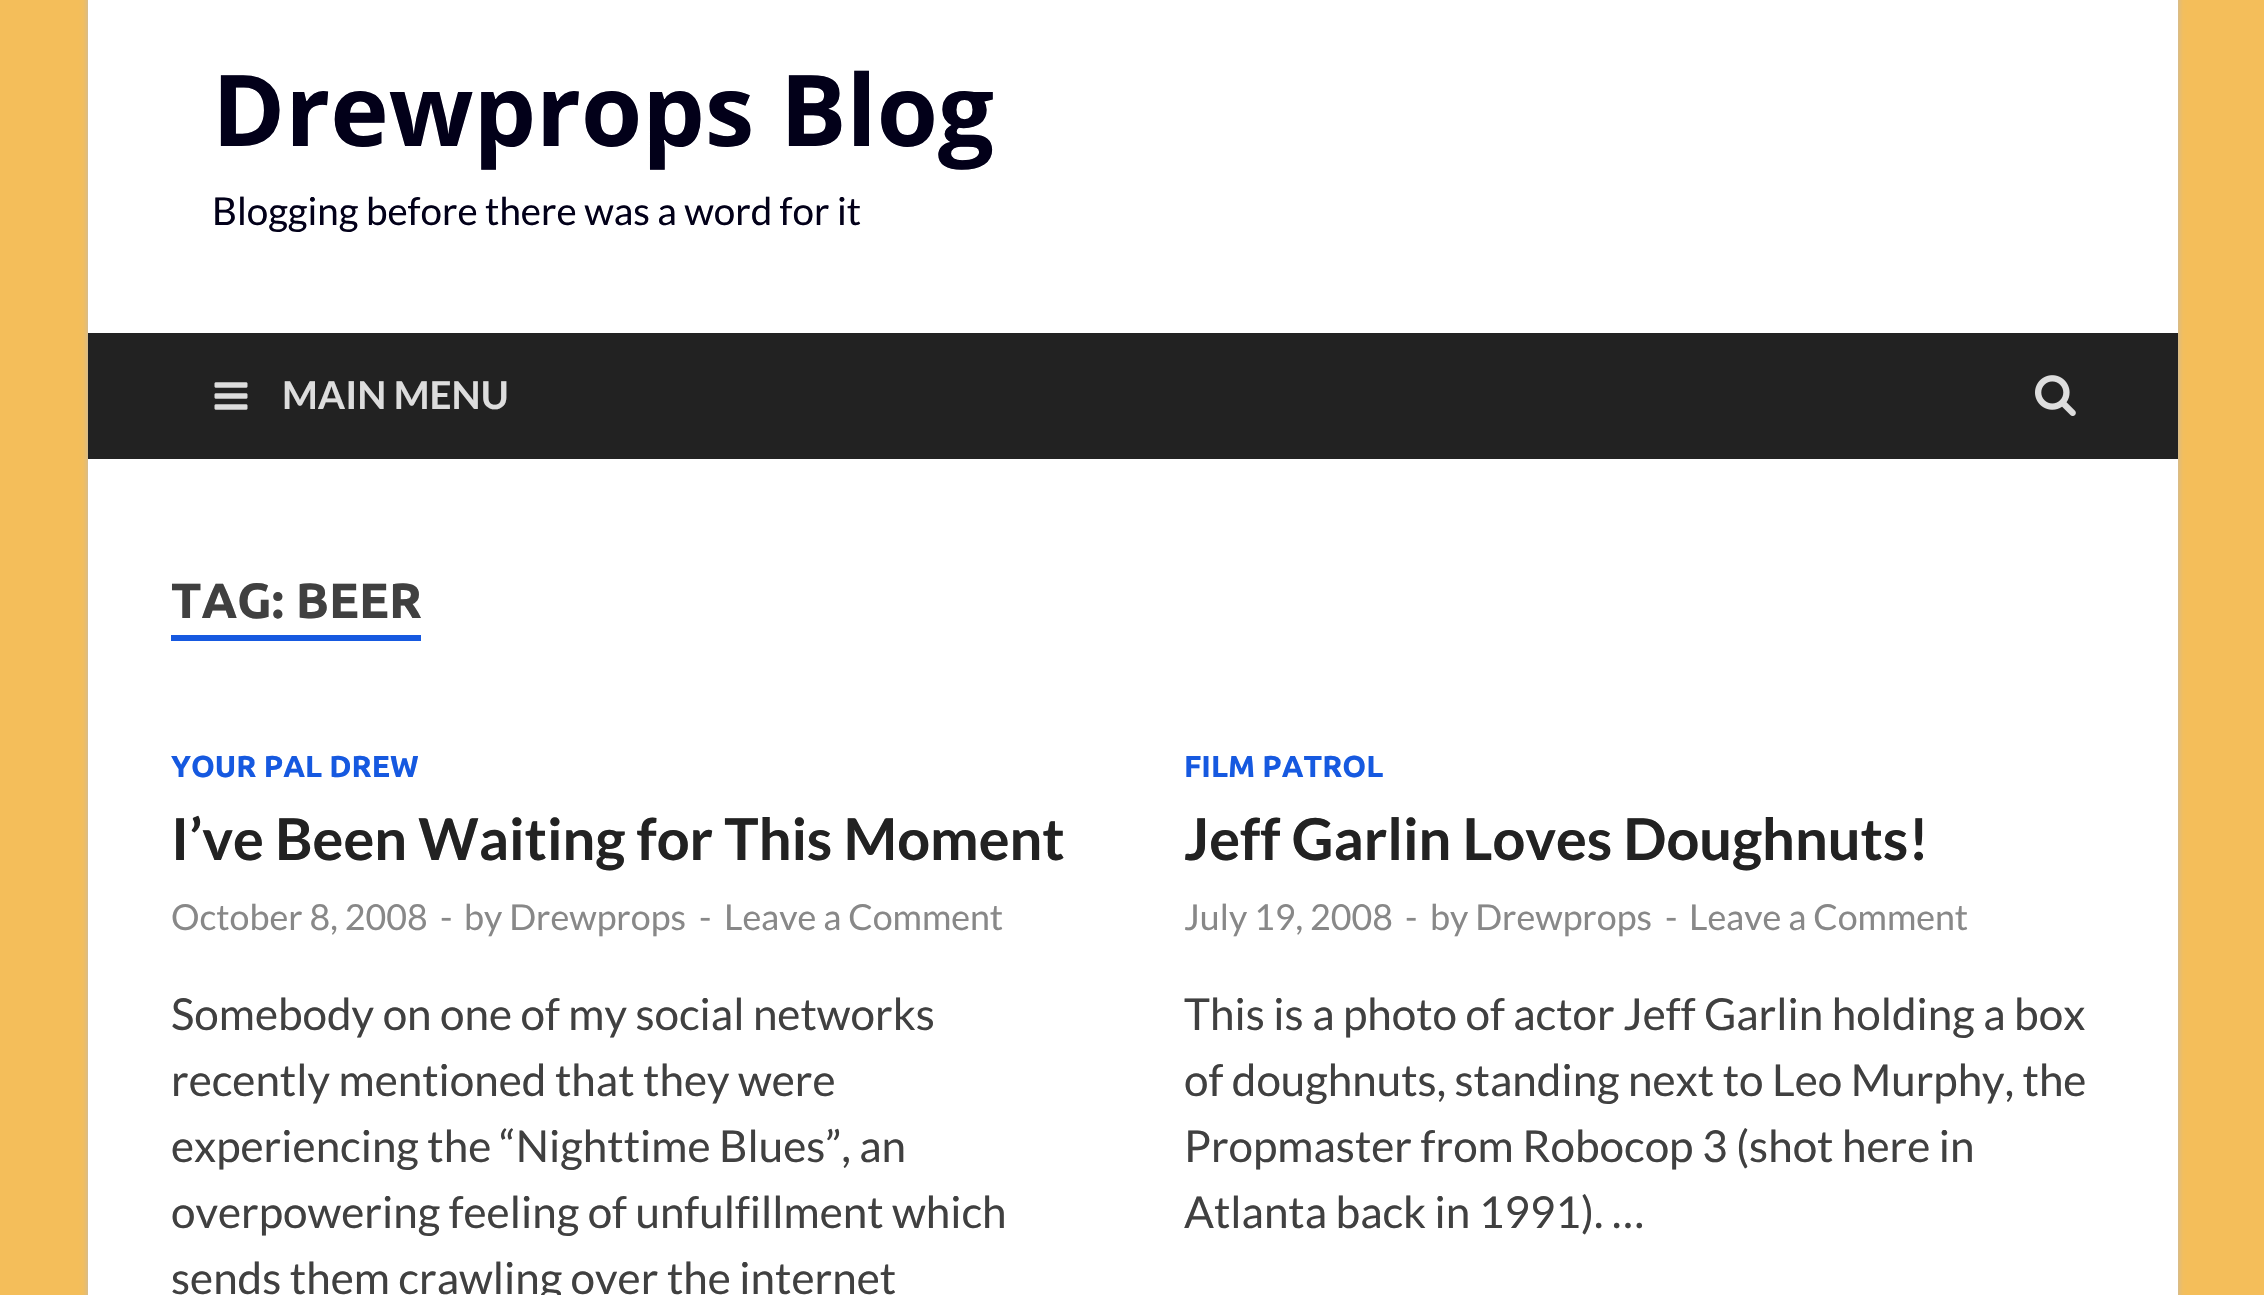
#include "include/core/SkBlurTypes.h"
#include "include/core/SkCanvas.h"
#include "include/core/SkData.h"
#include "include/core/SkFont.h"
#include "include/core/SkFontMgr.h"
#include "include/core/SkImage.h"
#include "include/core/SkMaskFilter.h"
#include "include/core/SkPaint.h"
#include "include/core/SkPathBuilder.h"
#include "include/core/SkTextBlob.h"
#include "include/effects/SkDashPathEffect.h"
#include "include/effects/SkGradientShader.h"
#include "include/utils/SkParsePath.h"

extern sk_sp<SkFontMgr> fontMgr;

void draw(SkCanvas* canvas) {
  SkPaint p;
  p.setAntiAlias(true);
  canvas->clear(SkColorSetRGB(244, 190, 90));
  p.setColor(SkColorSetRGB(187, 187, 187));
  p.setMaskFilter(SkMaskFilter::MakeBlur(kNormal_SkBlurStyle, 3));
  canvas->drawRect(SkRect::MakeLTRB(88, -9, 2178, 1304), p);
  p.setMaskFilter(nullptr);
  p.setColor(SK_ColorWHITE);
  canvas->drawRect(SkRect::MakeLTRB(88, 0, 2178, 1295), p);
  p.setColor(SkColorSetRGB(34, 34, 34));
  canvas->drawRect(SkRect::MakeLTRB(88, 333, 2178, 459), p);
  canvas->drawImageRect(SkImages::DeferredFromEncodedData(SkData::MakeFromFileName("images/1.png")), SkRect::MakeLTRB(214, 382, 248, 410), SkSamplingOptions());
  canvas->drawImageRect(SkImages::DeferredFromEncodedData(SkData::MakeFromFileName("images/2.png")), SkRect::MakeLTRB(2035, 375, 2076, 416), SkSamplingOptions());
  p.setColor(SkColorSetRGB(22, 89, 224));
  canvas->drawRect(SkRect::MakeLTRB(171, 635, 421, 641), p);
  SkFont font1(fontMgr->matchFamilyStyle("Open Sans", SkFontStyle::Bold()), 99);
  font1.setSubpixel(true);
  p.setColor(SkColorSetRGB(2, 0, 25));
  canvas->drawString("Drewprops Blog", 212, 146, font1, p);
  SkFont font2(fontMgr->matchFamilyStyle("Lato", SkFontStyle::Normal()), 38.5f);
  font2.setSubpixel(true);
  canvas->drawString("Blogging before there was a word for it", 212, 225, font2, p);
  SkFont font3(fontMgr->matchFamilyStyle("Lato", SkFontStyle::Bold()), 38.5f);
  font3.setSubpixel(true);
  p.setColor(SkColorSetRGB(221, 221, 221));
  canvas->drawString("MAIN MENU", 282, 409, font3, p);
  SkFont font4(fontMgr->matchFamilyStyle("Ubuntu", SkFontStyle::Bold()), 49.5f);
  font4.setSubpixel(true);
  p.setColor(SkColorSetRGB(64, 64, 64));
  canvas->drawString("TAG: BEER", 171, 618, font4, p);
  SkFont font5(fontMgr->matchFamilyStyle("Ubuntu", SkFontStyle::Bold()), 30.25f);
  font5.setSubpixel(true);
  p.setColor(SkColorSetRGB(22, 89, 224));
  canvas->drawString("YOUR PAL DREW", 171, 777, font5, p);
  SkFont font6(fontMgr->matchFamilyStyle("Lato", SkFontStyle::Bold()), 57.75f);
  font6.setSubpixel(true);
  p.setColor(SkColorSetRGB(34, 34, 34));
  canvas->drawString("I’ve Been Waiting for This Moment", 171, 860, font6, p);
  SkFont font7(fontMgr->matchFamilyStyle("Lato", SkFontStyle::Normal()), 35.75f);
  font7.setSubpixel(true);
  p.setColor(SkColorSetRGB(136, 136, 136));
  canvas->drawString("October 8, 2008", 171, 930, font7, p);
  canvas->drawString("-", 440, 930, font7, p);
  canvas->drawString("by Drewprops", 464, 930, font7, p);
  canvas->drawString("-", 699, 930, font7, p);
  canvas->drawString("Leave a Comment", 724, 930, font7, p);
  SkFont font8(fontMgr->matchFamilyStyle("Lato", SkFontStyle::Normal()), 44);
  font8.setSubpixel(true);
  p.setColor(SkColorSetRGB(64, 64, 64));
  canvas->drawString("Somebody on one of my social networks", 171, 1030, font8, p);
  canvas->drawString("recently mentioned that they were", 171, 1096, font8, p);
  canvas->drawString("experiencing the “Nighttime Blues”, an", 171, 1162, font8, p);
  canvas->drawString("overpowering feeling of unfulfillment which", 171, 1228, font8, p);
  canvas->drawString("sends them crawling over the internet", 171, 1294, font8, p);
  p.setColor(SkColorSetRGB(22, 89, 224));
  canvas->drawString("FILM PATROL", 1184, 777, font5, p);
  p.setColor(SkColorSetRGB(34, 34, 34));
  canvas->drawString("Jeff Garlin Loves Doughnuts!", 1184, 860, font6, p);
  p.setColor(SkColorSetRGB(136, 136, 136));
  canvas->drawString("July 19, 2008", 1184, 930, font7, p);
  canvas->drawString("-", 1405, 930, font7, p);
  canvas->drawString("by Drewprops", 1430, 930, font7, p);
  canvas->drawString("-", 1665, 930, font7, p);
  canvas->drawString("Leave a Comment", 1689, 930, font7, p);
  p.setColor(SkColorSetRGB(64, 64, 64));
  canvas->drawString("This is a photo of actor Jeff Garlin holding a box", 1184, 1030, font8, p);
  canvas->drawString("of doughnuts, standing next to Leo Murphy, the", 1184, 1096, font8, p);
  canvas->drawString("Propmaster from Robocop 3 (shot here in", 1184, 1162, font8, p);
  canvas->drawString("Atlanta back in 1991). …", 1184, 1228, font8, p);
}
